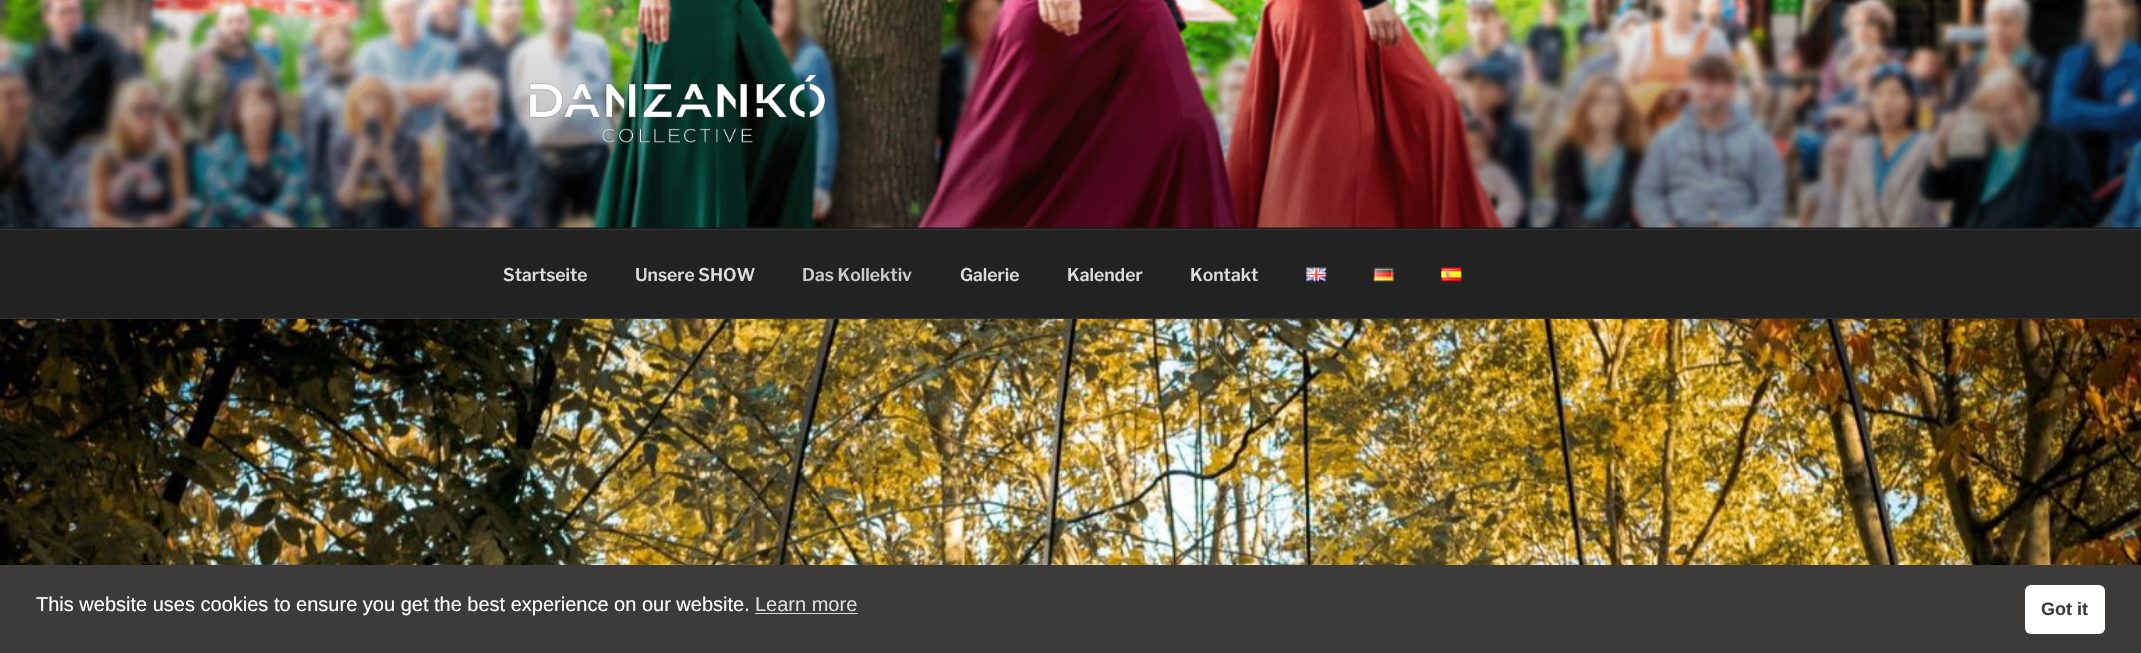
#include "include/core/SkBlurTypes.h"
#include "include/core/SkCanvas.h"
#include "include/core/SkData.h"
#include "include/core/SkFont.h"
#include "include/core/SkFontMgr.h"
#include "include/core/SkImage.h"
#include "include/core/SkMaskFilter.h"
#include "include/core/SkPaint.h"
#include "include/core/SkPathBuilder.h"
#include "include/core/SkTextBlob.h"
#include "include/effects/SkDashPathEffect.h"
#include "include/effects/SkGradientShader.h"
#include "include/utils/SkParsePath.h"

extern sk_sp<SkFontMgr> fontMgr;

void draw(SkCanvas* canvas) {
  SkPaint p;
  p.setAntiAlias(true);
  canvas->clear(SK_ColorWHITE);
  p.setColor(SkColorSetRGB(38, 38, 38));
  canvas->drawRect(SkRect::MakeLTRB(0, 227, 2141, 229), p);
  canvas->drawImageRect(SkImages::DeferredFromEncodedData(SkData::MakeFromFileName("images/1.png")), SkRect::MakeLTRB(0, 0, 2141, 228), SkSamplingOptions());
  {
    const SkColor colors[] = {SkColorSetARGB(0, 0, 0, 0), SkColorSetARGB(77, 0, 0, 0), SkColorSetARGB(77, 0, 0, 0)};
    const float stops[] = {0, 0.75f, 1};
    const SkPoint ends[] = {{1071, 0}, {1071, 229}};
    p.setShader(SkGradientShader::MakeLinear(ends, colors, stops, 3, SkTileMode::kClamp));
    p.setAlpha(255);
  }
  canvas->drawRect(SkRect::MakeLTRB(0, 12, 2141, 229), p);
  canvas->drawImageRect(SkImages::DeferredFromEncodedData(SkData::MakeFromFileName("images/2.png")), SkRect::MakeLTRB(529, 74, 826, 143), SkSamplingOptions());
  p.setShader(nullptr);
  p.setColor(SkColorSetRGB(34, 34, 34));
  canvas->drawRect(SkRect::MakeLTRB(0, 230, 2141, 318), p);
  p.setColor(SkColorSetRGB(51, 51, 51));
  canvas->drawRect(SkRect::MakeLTRB(0, 229, 2141, 230), p);
  canvas->drawRect(SkRect::MakeLTRB(0, 318, 2141, 319), p);
  canvas->drawImageRect(SkImages::DeferredFromEncodedData(SkData::MakeFromFileName("images/3.png")), SkRect::MakeLTRB(1306, 267, 1327, 282), SkSamplingOptions());
  canvas->drawImageRect(SkImages::DeferredFromEncodedData(SkData::MakeFromFileName("images/4.png")), SkRect::MakeLTRB(1373, 267, 1394, 282), SkSamplingOptions());
  canvas->drawImageRect(SkImages::DeferredFromEncodedData(SkData::MakeFromFileName("images/5.png")), SkRect::MakeLTRB(1441, 267, 1462, 282), SkSamplingOptions());
  canvas->drawImageRect(SkImages::DeferredFromEncodedData(SkData::MakeFromFileName("images/6.png")), SkRect::MakeLTRB(0, 319, 2141, 565), SkSamplingOptions());
  p.setColor(SkColorSetRGB(61, 58, 58));
  canvas->drawRect(SkRect::MakeLTRB(0, 565, 2141, 653), p);
  p.setColor(SkColorSetRGB(216, 216, 216));
  canvas->drawRect(SkRect::MakeLTRB(755, 613, 858, 614), p);
  p.setColor(SK_ColorWHITE);
  canvas->drawRoundRect(SkRect::MakeLTRB(2025, 585, 2105, 634), 6, 6, p);
  SkFont font1(fontMgr->matchFamilyStyle("Libre Franklin", SkFontStyle(100, SkFontStyle::kNormal_Width, SkFontStyle::kUpright_Slant)), 17.5f);
  font1.setSubpixel(true);
  p.setColor(SkColorSetRGB(221, 221, 221));
  canvas->drawString("Startseite", 503, 281, font1, p);
  canvas->drawString("Unsere SHOW", 635, 281, font1, p);
  p.setColor(SkColorSetRGB(204, 204, 204));
  canvas->drawString("Das Kollektiv", 802, 281, font1, p);
  p.setColor(SkColorSetRGB(221, 221, 221));
  canvas->drawString("Galerie", 960, 281, font1, p);
  canvas->drawString("Kalender", 1067, 281, font1, p);
  canvas->drawString("Kontakt", 1190, 281, font1, p);
  SkFont font2(fontMgr->matchFamilyStyle("Liberation Sans", SkFontStyle::Normal()), 20);
  font2.setSubpixel(true);
  p.setColor(SK_ColorWHITE);
  canvas->drawString("This website uses cookies to ensure you get the best experience on our website.", 36, 611, font2, p);
  p.setColor(SkColorSetRGB(221, 221, 221));
  canvas->drawString("Learn more", 755, 611, font2, p);
  SkFont font3(fontMgr->matchFamilyStyle("Liberation Sans", SkFontStyle::Bold()), 18);
  font3.setSubpixel(true);
  p.setColor(SkColorSetRGB(61, 58, 58));
  canvas->drawString("Got it", 2041, 615, font3, p);
}
